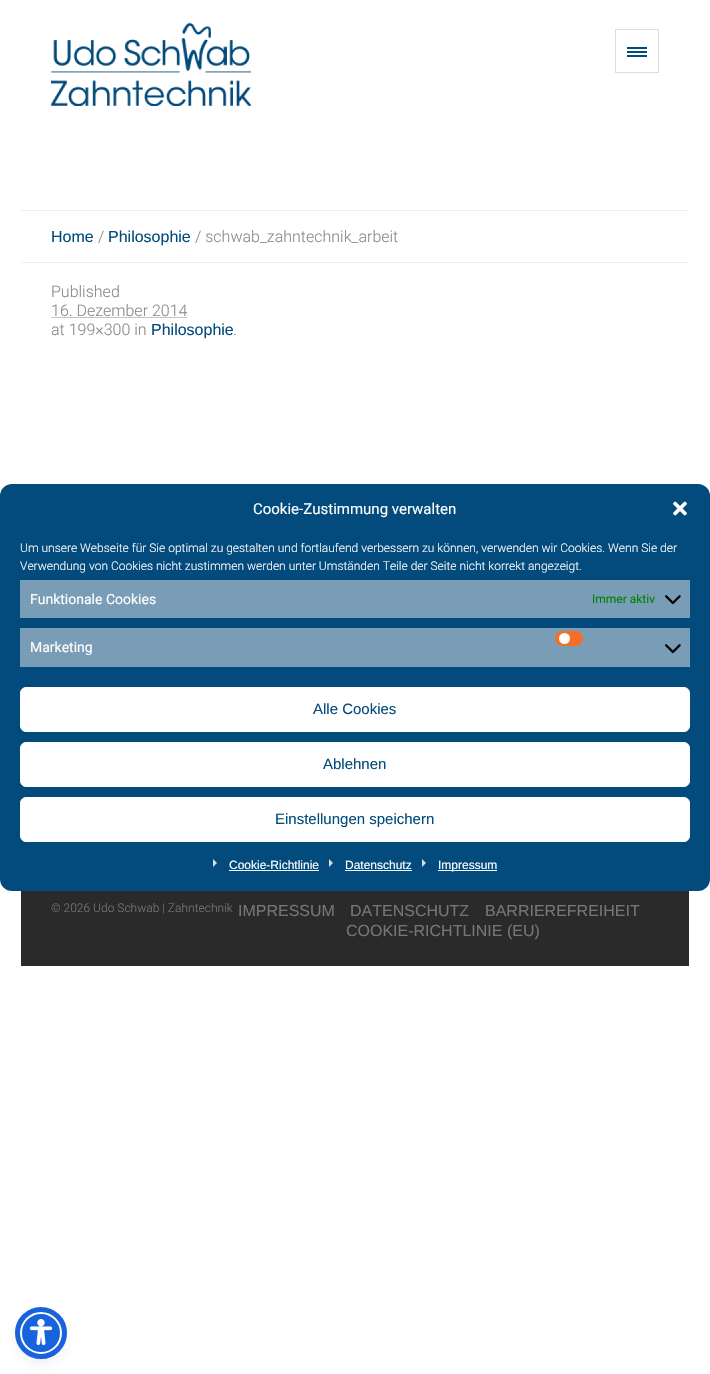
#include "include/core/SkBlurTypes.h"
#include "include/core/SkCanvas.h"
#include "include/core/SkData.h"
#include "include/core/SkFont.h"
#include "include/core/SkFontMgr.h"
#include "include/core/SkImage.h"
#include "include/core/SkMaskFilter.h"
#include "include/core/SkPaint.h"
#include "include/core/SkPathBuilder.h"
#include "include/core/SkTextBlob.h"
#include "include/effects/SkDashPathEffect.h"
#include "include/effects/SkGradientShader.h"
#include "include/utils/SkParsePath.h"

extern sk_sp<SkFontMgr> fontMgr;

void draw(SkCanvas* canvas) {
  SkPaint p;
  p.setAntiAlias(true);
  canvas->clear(SK_ColorWHITE);
  canvas->drawImageRect(SkImages::DeferredFromEncodedData(SkData::MakeFromFileName("images/1.png")), SkRect::MakeLTRB(51, 22, 251, 106), SkSamplingOptions());
  p.setStyle(SkPaint::kStroke_Style);
  p.setStrokeWidth(1);
  p.setColor(SkColorSetRGB(221, 221, 221));
  canvas->drawRect(SkRect::MakeLTRB(615.5f, 29.5f, 658.5f, 72.5f), p);
  p.setStyle(SkPaint::kFill_Style);
  p.setColor(SkColorSetRGB(3, 75, 124));
  canvas->drawRect(SkRect::MakeLTRB(627, 47, 647, 49), p);
  canvas->drawRect(SkRect::MakeLTRB(627, 51, 647, 53), p);
  canvas->drawRect(SkRect::MakeLTRB(627, 55, 647, 57), p);
  p.setColor(SkColorSetRGB(238, 238, 238));
  canvas->drawRect(SkRect::MakeLTRB(21, 210, 689, 211), p);
  canvas->drawRect(SkRect::MakeLTRB(21, 262, 689, 263), p);
  p.setStyle(SkPaint::kStroke_Style);
  p.setColor(SkColorSetRGB(138, 138, 138));
  p.setPathEffect(SkDashPathEffect::Make({{1, 1}}, 0));
  canvas->drawPath(SkPathBuilder().moveTo(51.5f, 317.5f).lineTo(187.5f, 317.5f).detach(), p);
  p.setPathEffect(nullptr);
  p.setStyle(SkPaint::kFill_Style);
  p.setColor(SkColorSetRGB(42, 42, 42));
  canvas->drawRect(SkRect::MakeLTRB(21, 891, 689, 966), p);
  p.setColor(SkColorSetRGB(3, 75, 124));
  canvas->drawRoundRect(SkRect::MakeLTRB(0, 484, 710, 891), 12, 12, p);
  canvas->drawImageRect(SkImages::DeferredFromEncodedData(SkData::MakeFromFileName("images/2.png")), SkRect::MakeLTRB(673, 501, 687, 516), SkSamplingOptions());
  p.setColor(SkColorSetRGB(121, 157, 182));
  canvas->drawRect(SkRect::MakeLTRB(20, 580, 690, 618), p);
  canvas->drawImageRect(SkImages::DeferredFromEncodedData(SkData::MakeFromFileName("images/3.png")), SkRect::MakeLTRB(665, 595, 681, 605), SkSamplingOptions());
  canvas->drawRect(SkRect::MakeLTRB(20, 628, 690, 667), p);
  p.setColor(SkColorSetRGB(245, 110, 40));
  canvas->drawRoundRect(SkRect::MakeLTRB(555, 631, 583, 646), 7.5f, 7.5f, p);
  p.setColor(SK_ColorWHITE);
  canvas->drawCircle(564.5f, 638.5f, 5.5f, p);
  canvas->drawImageRect(SkImages::DeferredFromEncodedData(SkData::MakeFromFileName("images/3.png")), SkRect::MakeLTRB(665, 644, 681, 654), SkSamplingOptions());
  canvas->drawRoundRect(SkRect::MakeLTRB(20.5f, 687.5f, 689.5f, 731.5f), 5.5f, 5.5f, p);
  p.setStyle(SkPaint::kStroke_Style);
  canvas->drawRoundRect(SkRect::MakeLTRB(20.5f, 687.5f, 689.5f, 731.5f), 5.5f, 5.5f, p);
  p.setStyle(SkPaint::kFill_Style);
  canvas->drawRoundRect(SkRect::MakeLTRB(20.5f, 742.5f, 689.5f, 786.5f), 5.5f, 5.5f, p);
  p.setStyle(SkPaint::kStroke_Style);
  canvas->drawRoundRect(SkRect::MakeLTRB(20.5f, 742.5f, 689.5f, 786.5f), 5.5f, 5.5f, p);
  p.setStyle(SkPaint::kFill_Style);
  canvas->drawRoundRect(SkRect::MakeLTRB(20.5f, 797.5f, 689.5f, 841.5f), 5.5f, 5.5f, p);
  p.setStyle(SkPaint::kStroke_Style);
  canvas->drawRoundRect(SkRect::MakeLTRB(20.5f, 797.5f, 689.5f, 841.5f), 5.5f, 5.5f, p);
  canvas->drawImageRect(SkImages::DeferredFromEncodedData(SkData::MakeFromFileName("images/4.png")), SkRect::MakeLTRB(213, 859, 217, 867), SkSamplingOptions());
  p.setStyle(SkPaint::kFill_Style);
  canvas->drawRect(SkRect::MakeLTRB(229, 870, 319, 871), p);
  canvas->drawImageRect(SkImages::DeferredFromEncodedData(SkData::MakeFromFileName("images/4.png")), SkRect::MakeLTRB(329, 859, 333, 867), SkSamplingOptions());
  canvas->drawRect(SkRect::MakeLTRB(345, 870, 412, 871), p);
  canvas->drawImageRect(SkImages::DeferredFromEncodedData(SkData::MakeFromFileName("images/4.png")), SkRect::MakeLTRB(422, 859, 426, 867), SkSamplingOptions());
  canvas->drawRect(SkRect::MakeLTRB(438, 870, 497, 871), p);
  p.setColor(SkColorSetARGB(51, 93, 100, 148));
  p.setMaskFilter(SkMaskFilter::MakeBlur(kNormal_SkBlurStyle, 2));
  canvas->drawRoundRect(SkRect::MakeLTRB(20, 1314, 62, 1356), 21, 21, p);
  p.setMaskFilter(nullptr);
  p.setColor(SkColorSetARGB(38, 37, 44, 97));
  p.setMaskFilter(SkMaskFilter::MakeBlur(kNormal_SkBlurStyle, 7.5f));
  canvas->drawRoundRect(SkRect::MakeLTRB(20, 1317, 62, 1359), 21, 21, p);
  p.setMaskFilter(nullptr);
  p.setColor(SkColorSetRGB(24, 99, 220));
  canvas->drawCircle(41, 1333, 20, p);
  p.setStyle(SkPaint::kStroke_Style);
  p.setStrokeWidth(2);
  p.setColor(SK_ColorWHITE);
  canvas->drawCircle(41, 1333, 20, p);
  p.setStrokeWidth(5);
  p.setColor(SkColorSetRGB(24, 99, 220));
  canvas->drawCircle(41, 1333, 23.5f, p);
  canvas->drawImageRect(SkImages::DeferredFromEncodedData(SkData::MakeFromFileName("images/5.png")), SkRect::MakeLTRB(29, 1319, 53, 1345), SkSamplingOptions());
  SkFont font1(fontMgr->matchFamilyStyle("Liberation Sans", SkFontStyle::Normal()), 16);
  font1.setSubpixel(true);
  p.setStyle(SkPaint::kFill_Style);
  p.setColor(SkColorSetRGB(3, 75, 124));
  canvas->drawString("Home", 51, 242, font1, p);
  SkFont font2(fontMgr->matchFamilyStyle("Roboto", SkFontStyle(300, SkFontStyle::kNormal_Width, SkFontStyle::kUpright_Slant)), 16);
  font2.setSubpixel(true);
  p.setColor(SkColorSetRGB(138, 138, 138));
  canvas->drawString("/", 98, 242, font2, p);
  p.setColor(SkColorSetRGB(3, 75, 124));
  canvas->drawString("Philosophie", 108, 242, font1, p);
  p.setColor(SkColorSetRGB(138, 138, 138));
  canvas->drawString("/ schwab_zahntechnik_arbeit", 195, 242, font2, p);
  canvas->drawString("Published", 51, 297, font2, p);
  canvas->drawString("16. Dezember 2014", 51, 316, font2, p);
  canvas->drawString("at 199×300 in", 51, 335, font2, p);
  p.setColor(SkColorSetRGB(3, 75, 124));
  canvas->drawString("Philosophie", 151, 335, font1, p);
  p.setColor(SkColorSetRGB(138, 138, 138));
  canvas->drawString(".", 233, 335, font2, p);
  SkFont font3(fontMgr->matchFamilyStyle("Roboto", SkFontStyle(300, SkFontStyle::kNormal_Width, SkFontStyle::kUpright_Slant)), 12);
  font3.setSubpixel(true);
  p.setColor(SkColorSetRGB(118, 118, 118));
  canvas->drawString("© 2026 Udo Schwab | Zahntechnik", 51, 912, font3, p);
  canvas->drawString("IMPRESSUM", 238, 916, font1, p);
  canvas->drawString("DATENSCHUTZ", 350, 916, font1, p);
  canvas->drawString("BARRIEREFREIHEIT", 485, 916, font1, p);
  canvas->drawString("COOKIE-RICHTLINIE (EU)", 346, 936, font1, p);
  SkFont font4(fontMgr->matchFamilyStyle("Roboto", SkFontStyle::Normal()), 15);
  font4.setSubpixel(true);
  p.setColor(SK_ColorWHITE);
  canvas->drawString("Cookie-Zustimmung verwalten", 253, 514, font4, p);
  canvas->drawString("Um unsere Webseite für Sie optimal zu gestalten und fortlaufend verbessern zu können, verwenden wir Cookies. Wenn Sie der", 20, 552, font3, p);
  canvas->drawString("Verwendung von Cookies nicht zustimmen werden unter Umständen Teile der Seite nicht korrekt angezeigt.", 20, 570, font3, p);
  SkFont font5(fontMgr->matchFamilyStyle("Roboto", SkFontStyle::Normal()), 14);
  font5.setSubpixel(true);
  canvas->drawString("Funktionale Cookies", 30, 604, font5, p);
  SkFont font6(fontMgr->matchFamilyStyle("Roboto", SkFontStyle::Normal()), 12);
  font6.setSubpixel(true);
  p.setColor(SkColorSetRGB(0, 128, 0));
  canvas->drawString("Immer aktiv", 592, 603, font6, p);
  p.setColor(SK_ColorWHITE);
  canvas->drawString("Marketing", 30, 652, font5, p);
  SkFont font7(fontMgr->matchFamilyStyle("Liberation Sans", SkFontStyle::Normal()), 15);
  font7.setSubpixel(true);
  p.setColor(SkColorSetRGB(3, 75, 124));
  canvas->drawString("Alle Cookies", 313, 714, font7, p);
  canvas->drawString("Ablehnen", 323, 769, font7, p);
  canvas->drawString("Einstellungen speichern", 275, 824, font7, p);
  SkFont font8(fontMgr->matchFamilyStyle("Liberation Sans", SkFontStyle::Normal()), 12);
  font8.setSubpixel(true);
  p.setColor(SK_ColorWHITE);
  canvas->drawString("Cookie-Richtlinie", 229, 869, font8, p);
  canvas->drawString("Datenschutz", 345, 869, font8, p);
  canvas->drawString("Impressum", 438, 869, font8, p);
}
